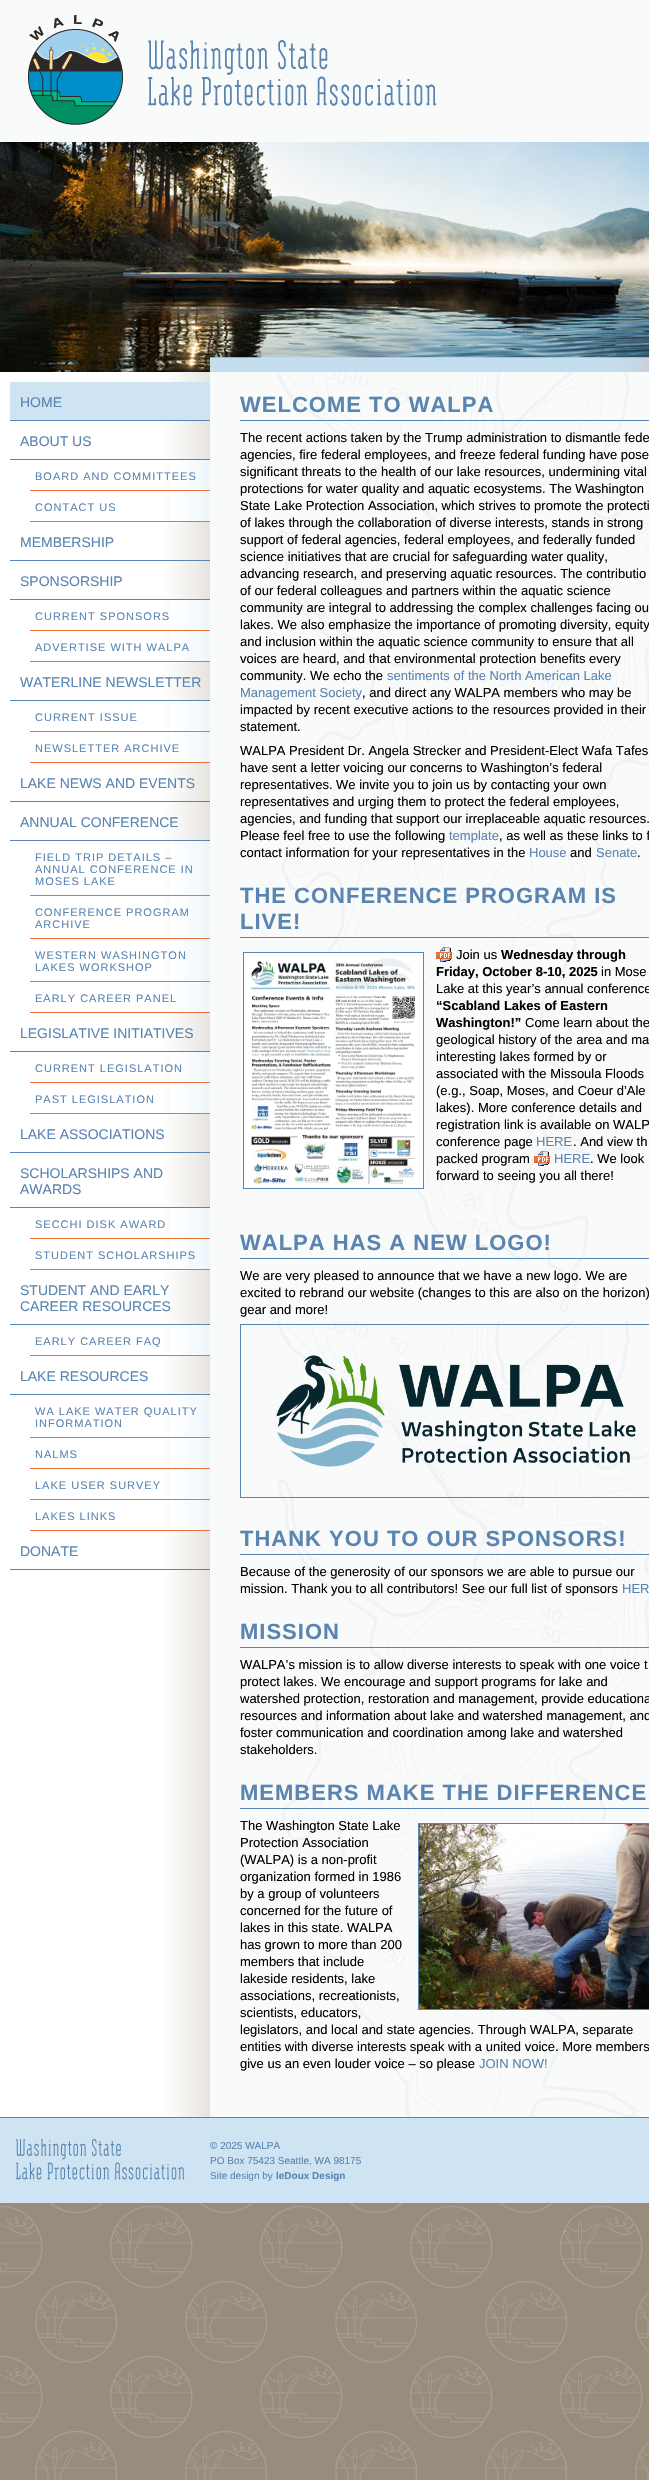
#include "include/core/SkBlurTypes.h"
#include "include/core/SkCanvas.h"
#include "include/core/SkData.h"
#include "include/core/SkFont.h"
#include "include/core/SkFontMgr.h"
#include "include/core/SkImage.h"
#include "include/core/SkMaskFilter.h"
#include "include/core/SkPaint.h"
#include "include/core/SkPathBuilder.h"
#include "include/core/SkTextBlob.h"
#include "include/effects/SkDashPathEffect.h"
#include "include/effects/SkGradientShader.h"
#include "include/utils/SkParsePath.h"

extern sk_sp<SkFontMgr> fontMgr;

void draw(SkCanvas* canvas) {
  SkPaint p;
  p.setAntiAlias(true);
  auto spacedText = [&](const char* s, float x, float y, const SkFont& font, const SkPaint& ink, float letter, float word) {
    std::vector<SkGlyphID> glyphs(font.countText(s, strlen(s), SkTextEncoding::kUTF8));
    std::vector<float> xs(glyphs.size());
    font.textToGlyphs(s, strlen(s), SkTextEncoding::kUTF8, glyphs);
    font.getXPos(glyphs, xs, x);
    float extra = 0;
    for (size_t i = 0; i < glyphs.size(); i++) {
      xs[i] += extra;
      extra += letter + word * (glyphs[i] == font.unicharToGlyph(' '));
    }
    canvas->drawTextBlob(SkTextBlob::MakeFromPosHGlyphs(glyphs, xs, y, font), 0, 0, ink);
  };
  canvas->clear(SK_ColorWHITE);
  canvas->drawImageRect(SkImages::DeferredFromEncodedData(SkData::MakeFromFileName("images/1.png")), SkRect::MakeLTRB(0, 2203, 649, 2480), SkSamplingOptions());
  p.setColor(SkColorSetRGB(249, 250, 250));
  canvas->drawRect(SkRect::MakeLTRB(210, 372, 277, 2117), p);
  canvas->drawImageRect(SkImages::DeferredFromEncodedData(SkData::MakeFromFileName("images/2.png")), SkRect::MakeLTRB(0, 372, 210, 2117), SkSamplingOptions());
  canvas->drawRect(SkRect::MakeLTRB(0, 0, 649, 142), p);
  canvas->drawImageRect(SkImages::DeferredFromEncodedData(SkData::MakeFromFileName("images/3.png")), SkRect::MakeLTRB(28, 15, 436, 125), SkSamplingOptions());
  canvas->drawImageRect(SkImages::DeferredFromEncodedData(SkData::MakeFromFileName("images/4.png")), SkRect::MakeLTRB(0, 142, 649, 372), SkSamplingOptions());
  canvas->drawImageRect(SkImages::DeferredFromEncodedData(SkData::MakeFromFileName("images/5.png")), SkRect::MakeLTRB(277, 372, 649, 2117), SkSamplingOptions());
  p.setColor(SkColorSetRGB(206, 228, 242));
  canvas->drawRect(SkRect::MakeLTRB(10, 382, 210, 420), p);
  p.setColor(SkColorSetRGB(90, 133, 177));
  canvas->drawRect(SkRect::MakeLTRB(10, 420, 210, 421), p);
  canvas->drawRect(SkRect::MakeLTRB(10, 459, 210, 460), p);
  canvas->drawImageRect(SkImages::DeferredFromEncodedData(SkData::MakeFromFileName("images/6.png")), SkRect::MakeLTRB(170, 460, 210, 521), SkSamplingOptions());
  p.setColor(SkColorSetRGB(235, 115, 58));
  canvas->drawRect(SkRect::MakeLTRB(30, 490, 210, 491), p);
  canvas->drawRect(SkRect::MakeLTRB(30, 521, 210, 522), p);
  p.setColor(SkColorSetRGB(90, 133, 177));
  canvas->drawRect(SkRect::MakeLTRB(10, 560, 210, 561), p);
  canvas->drawRect(SkRect::MakeLTRB(10, 599, 210, 600), p);
  canvas->drawImageRect(SkImages::DeferredFromEncodedData(SkData::MakeFromFileName("images/6.png")), SkRect::MakeLTRB(170, 600, 210, 661), SkSamplingOptions());
  p.setColor(SkColorSetRGB(235, 115, 58));
  canvas->drawRect(SkRect::MakeLTRB(30, 630, 210, 631), p);
  canvas->drawRect(SkRect::MakeLTRB(30, 661, 210, 662), p);
  p.setColor(SkColorSetRGB(90, 133, 177));
  canvas->drawRect(SkRect::MakeLTRB(10, 700, 210, 701), p);
  canvas->drawImageRect(SkImages::DeferredFromEncodedData(SkData::MakeFromFileName("images/6.png")), SkRect::MakeLTRB(170, 701, 210, 762), SkSamplingOptions());
  p.setColor(SkColorSetRGB(235, 115, 58));
  canvas->drawRect(SkRect::MakeLTRB(30, 731, 210, 732), p);
  canvas->drawRect(SkRect::MakeLTRB(30, 762, 210, 763), p);
  p.setColor(SkColorSetRGB(90, 133, 177));
  canvas->drawRect(SkRect::MakeLTRB(10, 801, 210, 802), p);
  canvas->drawRect(SkRect::MakeLTRB(10, 840, 210, 841), p);
  canvas->drawImageRect(SkImages::DeferredFromEncodedData(SkData::MakeFromFileName("images/7.png")), SkRect::MakeLTRB(170, 841, 210, 1012), SkSamplingOptions());
  p.setColor(SkColorSetRGB(235, 115, 58));
  canvas->drawRect(SkRect::MakeLTRB(30, 895, 210, 896), p);
  canvas->drawRect(SkRect::MakeLTRB(30, 938, 210, 939), p);
  canvas->drawRect(SkRect::MakeLTRB(30, 981, 210, 982), p);
  canvas->drawRect(SkRect::MakeLTRB(30, 1012, 210, 1013), p);
  p.setColor(SkColorSetRGB(90, 133, 177));
  canvas->drawRect(SkRect::MakeLTRB(10, 1051, 210, 1052), p);
  canvas->drawImageRect(SkImages::DeferredFromEncodedData(SkData::MakeFromFileName("images/6.png")), SkRect::MakeLTRB(170, 1052, 210, 1113), SkSamplingOptions());
  p.setColor(SkColorSetRGB(235, 115, 58));
  canvas->drawRect(SkRect::MakeLTRB(30, 1082, 210, 1083), p);
  canvas->drawRect(SkRect::MakeLTRB(30, 1113, 210, 1114), p);
  p.setColor(SkColorSetRGB(90, 133, 177));
  canvas->drawRect(SkRect::MakeLTRB(10, 1152, 210, 1153), p);
  canvas->drawRect(SkRect::MakeLTRB(10, 1207, 210, 1208), p);
  canvas->drawImageRect(SkImages::DeferredFromEncodedData(SkData::MakeFromFileName("images/6.png")), SkRect::MakeLTRB(170, 1208, 210, 1269), SkSamplingOptions());
  p.setColor(SkColorSetRGB(235, 115, 58));
  canvas->drawRect(SkRect::MakeLTRB(30, 1238, 210, 1239), p);
  canvas->drawRect(SkRect::MakeLTRB(30, 1269, 210, 1270), p);
  p.setColor(SkColorSetRGB(90, 133, 177));
  canvas->drawRect(SkRect::MakeLTRB(10, 1324, 210, 1325), p);
  canvas->drawImageRect(SkImages::DeferredFromEncodedData(SkData::MakeFromFileName("images/8.png")), SkRect::MakeLTRB(170, 1325, 210, 1355), SkSamplingOptions());
  p.setColor(SkColorSetRGB(235, 115, 58));
  canvas->drawRect(SkRect::MakeLTRB(30, 1355, 210, 1356), p);
  p.setColor(SkColorSetRGB(90, 133, 177));
  canvas->drawRect(SkRect::MakeLTRB(10, 1394, 210, 1395), p);
  canvas->drawImageRect(SkImages::DeferredFromEncodedData(SkData::MakeFromFileName("images/9.png")), SkRect::MakeLTRB(170, 1395, 210, 1530), SkSamplingOptions());
  p.setColor(SkColorSetRGB(235, 115, 58));
  canvas->drawRect(SkRect::MakeLTRB(30, 1437, 210, 1438), p);
  canvas->drawRect(SkRect::MakeLTRB(30, 1468, 210, 1469), p);
  canvas->drawRect(SkRect::MakeLTRB(30, 1499, 210, 1500), p);
  canvas->drawRect(SkRect::MakeLTRB(30, 1530, 210, 1531), p);
  p.setColor(SkColorSetRGB(90, 133, 177));
  canvas->drawRect(SkRect::MakeLTRB(10, 1569, 210, 1570), p);
  canvas->drawRect(SkRect::MakeLTRB(240, 420, 649, 421), p);
  canvas->drawRect(SkRect::MakeLTRB(240, 937, 649, 938), p);
  canvas->drawImageRect(SkImages::DeferredFromEncodedData(SkData::MakeFromFileName("images/10.png")), SkRect::MakeLTRB(436, 947, 452, 962), SkSamplingOptions());
  p.setStyle(SkPaint::kStroke_Style);
  p.setStrokeWidth(1);
  canvas->drawRect(SkRect::MakeLTRB(243.5f, 952.5f, 423.5f, 1188.5f), p);
  canvas->drawImageRect(SkImages::DeferredFromEncodedData(SkData::MakeFromFileName("images/11.png")), SkRect::MakeLTRB(244, 953, 423, 1188), SkSamplingOptions());
  canvas->drawImageRect(SkImages::DeferredFromEncodedData(SkData::MakeFromFileName("images/12.png")), SkRect::MakeLTRB(534, 1151, 550, 1166), SkSamplingOptions());
  p.setStyle(SkPaint::kFill_Style);
  canvas->drawRect(SkRect::MakeLTRB(240, 1258, 649, 1259), p);
  p.setStyle(SkPaint::kStroke_Style);
  canvas->drawRect(SkRect::MakeLTRB(240.5f, 1324.5f, 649.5f, 1497.5f), p);
  canvas->drawImageRect(SkImages::DeferredFromEncodedData(SkData::MakeFromFileName("images/13.png")), SkRect::MakeLTRB(276, 1355, 636, 1467), SkSamplingOptions());
  p.setStyle(SkPaint::kFill_Style);
  canvas->drawRect(SkRect::MakeLTRB(240, 1554, 649, 1555), p);
  canvas->drawRect(SkRect::MakeLTRB(240, 1647, 649, 1648), p);
  canvas->drawRect(SkRect::MakeLTRB(240, 1808, 649, 1809), p);
  p.setStyle(SkPaint::kStroke_Style);
  canvas->drawRect(SkRect::MakeLTRB(418.5f, 1823.5f, 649.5f, 2009.5f), p);
  canvas->drawImageRect(SkImages::DeferredFromEncodedData(SkData::MakeFromFileName("images/14.png")), SkRect::MakeLTRB(419, 1824, 649, 2009), SkSamplingOptions());
  p.setStyle(SkPaint::kFill_Style);
  p.setColor(SkColorSetRGB(206, 228, 242));
  canvas->drawRect(SkRect::MakeLTRB(0, 2118, 649, 2203), p);
  p.setColor(SkColorSetRGB(90, 133, 177));
  canvas->drawRect(SkRect::MakeLTRB(0, 2117, 649, 2118), p);
  canvas->drawImageRect(SkImages::DeferredFromEncodedData(SkData::MakeFromFileName("images/15.png")), SkRect::MakeLTRB(16, 2139, 185, 2180), SkSamplingOptions());
  SkFont font1(fontMgr->matchFamilyStyle("Liberation Sans", SkFontStyle::Normal()), 14);
  font1.setSubpixel(true);
  canvas->drawString("HOME", 20, 407, font1, p);
  canvas->drawString("ABOUT US", 20, 446, font1, p);
  SkFont font2(fontMgr->matchFamilyStyle("Liberation Sans", SkFontStyle::Normal()), 11);
  font2.setSubpixel(true);
  spacedText("BOARD AND COMMITTEES", 35, 480, font2, p, 1, 0);
  spacedText("CONTACT US", 35, 511, font2, p, 1, 0);
  canvas->drawString("MEMBERSHIP", 20, 547, font1, p);
  canvas->drawString("SPONSORSHIP", 20, 586, font1, p);
  spacedText("CURRENT SPONSORS", 35, 620, font2, p, 1, 0);
  spacedText("ADVERTISE WITH WALPA", 35, 651, font2, p, 1, 0);
  canvas->drawString("WATERLINE NEWSLETTER", 20, 687, font1, p);
  spacedText("CURRENT ISSUE", 35, 721, font2, p, 1, 0);
  spacedText("NEWSLETTER ARCHIVE", 35, 752, font2, p, 1, 0);
  canvas->drawString("LAKE NEWS AND EVENTS", 20, 788, font1, p);
  canvas->drawString("ANNUAL CONFERENCE", 20, 827, font1, p);
  spacedText("FIELD TRIP DETAILS –", 35, 861, font2, p, 1, 0);
  spacedText("ANNUAL CONFERENCE IN", 35, 873, font2, p, 1, 0);
  spacedText("MOSES LAKE", 35, 885, font2, p, 1, 0);
  spacedText("CONFERENCE PROGRAM", 35, 916, font2, p, 1, 0);
  spacedText("ARCHIVE", 35, 928, font2, p, 1, 0);
  spacedText("WESTERN WASHINGTON", 35, 959, font2, p, 1, 0);
  spacedText("LAKES WORKSHOP", 35, 971, font2, p, 1, 0);
  spacedText("EARLY CAREER PANEL", 35, 1002, font2, p, 1, 0);
  canvas->drawString("LEGISLATIVE INITIATIVES", 20, 1038, font1, p);
  spacedText("CURRENT LEGISLATION", 35, 1072, font2, p, 1, 0);
  spacedText("PAST LEGISLATION", 35, 1103, font2, p, 1, 0);
  canvas->drawString("LAKE ASSOCIATIONS", 20, 1139, font1, p);
  canvas->drawString("SCHOLARSHIPS AND", 20, 1178, font1, p);
  canvas->drawString("AWARDS", 20, 1194, font1, p);
  spacedText("SECCHI DISK AWARD", 35, 1228, font2, p, 1, 0);
  spacedText("STUDENT SCHOLARSHIPS", 35, 1259, font2, p, 1, 0);
  canvas->drawString("STUDENT AND EARLY", 20, 1295, font1, p);
  canvas->drawString("CAREER RESOURCES", 20, 1311, font1, p);
  spacedText("EARLY CAREER FAQ", 35, 1345, font2, p, 1, 0);
  canvas->drawString("LAKE RESOURCES", 20, 1381, font1, p);
  spacedText("WA LAKE WATER QUALITY", 35, 1415, font2, p, 1, 0);
  spacedText("INFORMATION", 35, 1427, font2, p, 1, 0);
  spacedText("NALMS", 35, 1458, font2, p, 1, 0);
  spacedText("LAKE USER SURVEY", 35, 1489, font2, p, 1, 0);
  spacedText("LAKES LINKS", 35, 1520, font2, p, 1, 0);
  canvas->drawString("DONATE", 20, 1556, font1, p);
  SkFont font3(fontMgr->matchFamilyStyle("Liberation Sans", SkFontStyle::Bold()), 22);
  font3.setSubpixel(true);
  spacedText("WELCOME TO WALPA", 240, 412, font3, p, 1, 0);
  SkFont font4(fontMgr->matchFamilyStyle("Liberation Sans", SkFontStyle::Normal()), 13);
  font4.setSubpixel(true);
  p.setColor(SK_ColorBLACK);
  canvas->drawString("The recent actions taken by the Trump administration to dismantle fede", 240, 442, font4, p);
  canvas->drawString("agencies, fire federal employees, and freeze federal funding have pose", 240, 459, font4, p);
  canvas->drawString("significant threats to the health of our lake resources, undermining vital", 240, 476, font4, p);
  canvas->drawString("protections for water quality and aquatic ecosystems. The Washington", 240, 493, font4, p);
  canvas->drawString("State Lake Protection Association, which strives to promote the protecti", 240, 510, font4, p);
  canvas->drawString("of lakes through the collaboration of diverse interests, stands in strong", 240, 527, font4, p);
  canvas->drawString("support of federal agencies, federal employees, and federally funded", 240, 544, font4, p);
  canvas->drawString("science initiatives that are crucial for safeguarding water quality,", 240, 561, font4, p);
  canvas->drawString("advancing research, and preserving aquatic resources. The contributio", 240, 578, font4, p);
  canvas->drawString("of our federal colleagues and partners within the aquatic science", 240, 595, font4, p);
  canvas->drawString("community are integral to addressing the complex challenges facing ou", 240, 612, font4, p);
  canvas->drawString("lakes. We also emphasize the importance of promoting diversity, equity", 240, 629, font4, p);
  canvas->drawString("and inclusion within the aquatic science community to ensure that all", 240, 646, font4, p);
  canvas->drawString("voices are heard, and that environmental protection benefits every", 240, 663, font4, p);
  canvas->drawString("community. We echo the", 240, 680, font4, p);
  p.setColor(SkColorSetRGB(90, 133, 177));
  canvas->drawString("sentiments of the North American Lake", 387, 680, font4, p);
  canvas->drawString("Management Society", 240, 697, font4, p);
  p.setColor(SK_ColorBLACK);
  canvas->drawString(", and direct any WALPA members who may be", 362, 697, font4, p);
  canvas->drawString("impacted by recent executive actions to the resources provided in their", 240, 714, font4, p);
  canvas->drawString("statement.", 240, 731, font4, p);
  canvas->drawString("WALPA President Dr. Angela Strecker and President-Elect Wafa Tafes", 240, 755, font4, p);
  canvas->drawString("have sent a letter voicing our concerns to Washington’s federal", 240, 772, font4, p);
  canvas->drawString("representatives. We invite you to join us by contacting your own", 240, 789, font4, p);
  canvas->drawString("representatives and urging them to protect the federal employees,", 240, 806, font4, p);
  canvas->drawString("agencies, and funding that support our irreplaceable aquatic resources.", 240, 823, font4, p);
  canvas->drawString("Please feel free to use the following", 240, 840, font4, p);
  p.setColor(SkColorSetRGB(90, 133, 177));
  canvas->drawString("template", 449, 840, font4, p);
  p.setColor(SK_ColorBLACK);
  canvas->drawString(", as well as these links to f", 499, 840, font4, p);
  canvas->drawString("contact information for your representatives in the", 240, 857, font4, p);
  p.setColor(SkColorSetRGB(90, 133, 177));
  canvas->drawString("House", 529, 857, font4, p);
  p.setColor(SK_ColorBLACK);
  canvas->drawString("and", 570, 857, font4, p);
  p.setColor(SkColorSetRGB(90, 133, 177));
  canvas->drawString("Senate", 596, 857, font4, p);
  p.setColor(SK_ColorBLACK);
  canvas->drawString(".", 637, 857, font4, p);
  p.setColor(SkColorSetRGB(90, 133, 177));
  spacedText("THE CONFERENCE PROGRAM IS", 240, 903, font3, p, 1, 0);
  spacedText("LIVE!", 240, 929, font3, p, 1, 0);
  p.setColor(SK_ColorBLACK);
  canvas->drawString("Join us", 456, 959, font4, p);
  SkFont font5(fontMgr->matchFamilyStyle("Liberation Sans", SkFontStyle::Bold()), 13);
  font5.setSubpixel(true);
  canvas->drawString("Wednesday through", 501, 959, font5, p);
  canvas->drawString("Friday, October 8-10, 2025", 436, 976, font5, p);
  canvas->drawString("in Mose", 601, 976, font4, p);
  canvas->drawString("Lake at this year’s annual conference", 436, 993, font4, p);
  canvas->drawString("“Scabland Lakes of Eastern", 436, 1010, font5, p);
  canvas->drawString("Washington!”", 436, 1027, font5, p);
  canvas->drawString("Come learn about the", 525, 1027, font4, p);
  canvas->drawString("geological history of the area and ma", 436, 1044, font4, p);
  canvas->drawString("interesting lakes formed by or", 436, 1061, font4, p);
  canvas->drawString("associated with the Missoula Floods", 436, 1078, font4, p);
  canvas->drawString("(e.g., Soap, Moses, and Coeur d’Ale", 436, 1095, font4, p);
  canvas->drawString("lakes). More conference details and", 436, 1112, font4, p);
  canvas->drawString("registration link is available on WALP", 436, 1129, font4, p);
  canvas->drawString("conference page", 436, 1146, font4, p);
  p.setColor(SkColorSetRGB(90, 133, 177));
  canvas->drawString("HERE", 536, 1146, font4, p);
  p.setColor(SK_ColorBLACK);
  canvas->drawString(". And view th", 573, 1146, font4, p);
  canvas->drawString("packed program", 436, 1163, font4, p);
  p.setColor(SkColorSetRGB(90, 133, 177));
  canvas->drawString("HERE", 554, 1163, font4, p);
  p.setColor(SK_ColorBLACK);
  canvas->drawString(". We look", 590, 1163, font4, p);
  canvas->drawString("forward to seeing you all there!", 436, 1180, font4, p);
  p.setColor(SkColorSetRGB(90, 133, 177));
  spacedText("WALPA HAS A NEW LOGO!", 240, 1250, font3, p, 1, 0);
  p.setColor(SK_ColorBLACK);
  canvas->drawString("We are very pleased to announce that we have a new logo. We are", 240, 1280, font4, p);
  canvas->drawString("excited to rebrand our website (changes to this are also on the horizon)", 240, 1297, font4, p);
  canvas->drawString("gear and more!", 240, 1314, font4, p);
  p.setColor(SkColorSetRGB(90, 133, 177));
  spacedText("THANK YOU TO OUR SPONSORS!", 240, 1546, font3, p, 1, 0);
  p.setColor(SK_ColorBLACK);
  canvas->drawString("Because of the generosity of our sponsors we are able to pursue our", 240, 1576, font4, p);
  canvas->drawString("mission. Thank you to all contributors! See our full list of sponsors", 240, 1593, font4, p);
  p.setColor(SkColorSetRGB(90, 133, 177));
  canvas->drawString("HER", 622, 1593, font4, p);
  spacedText("MISSION", 240, 1639, font3, p, 1, 0);
  p.setColor(SK_ColorBLACK);
  canvas->drawString("WALPA’s mission is to allow diverse interests to speak with one voice t", 240, 1669, font4, p);
  canvas->drawString("protect lakes. We encourage and support programs for lake and", 240, 1686, font4, p);
  canvas->drawString("watershed protection, restoration and management, provide educationa", 240, 1703, font4, p);
  canvas->drawString("resources and information about lake and watershed management, and", 240, 1720, font4, p);
  canvas->drawString("foster communication and coordination among lake and watershed", 240, 1737, font4, p);
  canvas->drawString("stakeholders.", 240, 1754, font4, p);
  p.setColor(SkColorSetRGB(90, 133, 177));
  spacedText("MEMBERS MAKE THE DIFFERENCE", 240, 1800, font3, p, 1, 0);
  p.setColor(SK_ColorBLACK);
  canvas->drawString("The Washington State Lake", 240, 1830, font4, p);
  canvas->drawString("Protection Association", 240, 1847, font4, p);
  canvas->drawString("(WALPA) is a non-profit", 240, 1864, font4, p);
  canvas->drawString("organization formed in 1986", 240, 1881, font4, p);
  canvas->drawString("by a group of volunteers", 240, 1898, font4, p);
  canvas->drawString("concerned for the future of", 240, 1915, font4, p);
  canvas->drawString("lakes in this state. WALPA", 240, 1932, font4, p);
  canvas->drawString("has grown to more than 200", 240, 1949, font4, p);
  canvas->drawString("members that include", 240, 1966, font4, p);
  canvas->drawString("lakeside residents, lake", 240, 1983, font4, p);
  canvas->drawString("associations, recreationists,", 240, 2000, font4, p);
  canvas->drawString("scientists, educators,", 240, 2017, font4, p);
  canvas->drawString("legislators, and local and state agencies. Through WALPA, separate", 240, 2034, font4, p);
  canvas->drawString("entities with diverse interests speak with a united voice. More members", 240, 2051, font4, p);
  canvas->drawString("give us an even louder voice – so please", 240, 2068, font4, p);
  p.setColor(SkColorSetRGB(90, 133, 177));
  canvas->drawString("JOIN NOW!", 479, 2068, font4, p);
  SkFont font6(fontMgr->matchFamilyStyle("Liberation Sans", SkFontStyle::Normal()), 10);
  font6.setSubpixel(true);
  canvas->drawString("© 2025 WALPA", 210, 2149, font6, p);
  canvas->drawString("PO Box 75423 Seattle, WA 98175", 210, 2164, font6, p);
  canvas->drawString("Site design by", 210, 2179, font6, p);
  SkFont font7(fontMgr->matchFamilyStyle("Liberation Sans", SkFontStyle::Bold()), 10);
  font7.setSubpixel(true);
  canvas->drawString("leDoux Design", 276, 2179, font7, p);
}
